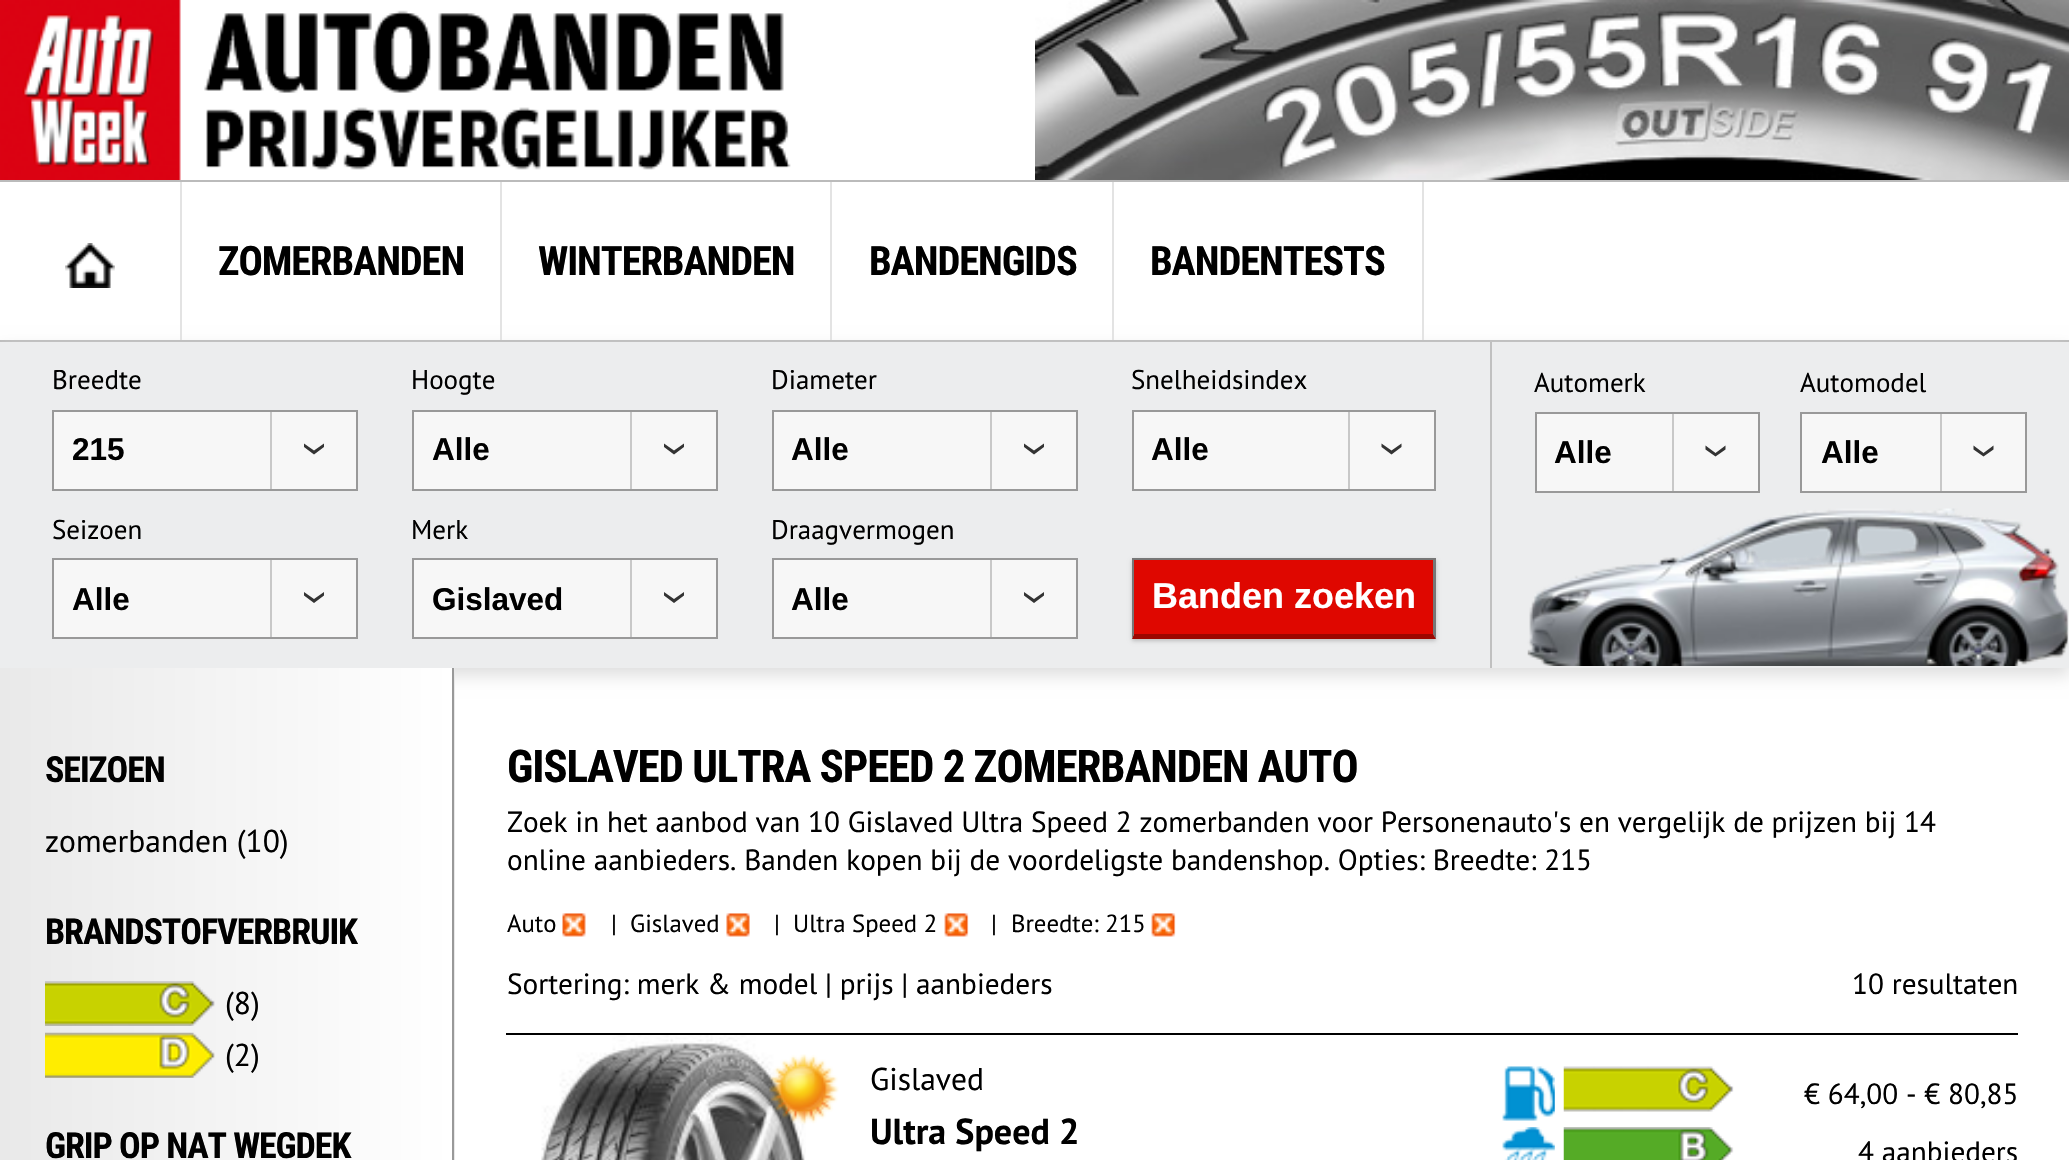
#include "include/core/SkBlurTypes.h"
#include "include/core/SkCanvas.h"
#include "include/core/SkData.h"
#include "include/core/SkFont.h"
#include "include/core/SkFontMgr.h"
#include "include/core/SkImage.h"
#include "include/core/SkMaskFilter.h"
#include "include/core/SkPaint.h"
#include "include/core/SkPathBuilder.h"
#include "include/core/SkTextBlob.h"
#include "include/effects/SkDashPathEffect.h"
#include "include/effects/SkGradientShader.h"
#include "include/utils/SkParsePath.h"

extern sk_sp<SkFontMgr> fontMgr;

void draw(SkCanvas* canvas) {
  SkPaint p;
  p.setAntiAlias(true);
  auto spacedText = [&](const char* s, float x, float y, const SkFont& font, const SkPaint& ink, float letter, float word) {
    std::vector<SkGlyphID> glyphs(font.countText(s, strlen(s), SkTextEncoding::kUTF8));
    std::vector<float> xs(glyphs.size());
    font.textToGlyphs(s, strlen(s), SkTextEncoding::kUTF8, glyphs);
    font.getXPos(glyphs, xs, x);
    float extra = 0;
    for (size_t i = 0; i < glyphs.size(); i++) {
      xs[i] += extra;
      extra += letter + word * (glyphs[i] == font.unicharToGlyph(' '));
    }
    canvas->drawTextBlob(SkTextBlob::MakeFromPosHGlyphs(glyphs, xs, y, font), 0, 0, ink);
  };
  canvas->clear(SK_ColorWHITE);
  canvas->drawImageRect(SkImages::DeferredFromEncodedData(SkData::MakeFromFileName("images/1.png")), SkRect::MakeLTRB(0, 0, 791, 180), SkSamplingOptions());
  canvas->drawImageRect(SkImages::DeferredFromEncodedData(SkData::MakeFromFileName("images/2.png")), SkRect::MakeLTRB(1035, 0, 2069, 180), SkSamplingOptions());
  p.setColor(SkColorSetRGB(187, 187, 187));
  canvas->drawRect(SkRect::MakeLTRB(0, 180, 2069, 182), p);
  canvas->drawRect(SkRect::MakeLTRB(0, 340, 2069, 342), p);
  p.setColor(SkColorSetRGB(236, 237, 238));
  canvas->drawRect(SkRect::MakeLTRB(0, 342, 2069, 668), p);
  canvas->save();
  canvas->clipPath(SkPathBuilder(SkPathFillType::kEvenOdd).moveTo(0, 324).lineTo(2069, 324).lineTo(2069, 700).lineTo(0, 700).close().moveTo(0, 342).lineTo(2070, 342).lineTo(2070, 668).lineTo(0, 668).close().detach(), true);
  p.setColor(SkColorSetRGB(221, 221, 221));
  p.setMaskFilter(SkMaskFilter::MakeBlur(kNormal_SkBlurStyle, 8));
  canvas->drawRect(SkRect::MakeLTRB(0, 349, 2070, 675), p);
  p.setMaskFilter(nullptr);
  canvas->restore();
  p.setColor(SkColorSetRGB(227, 227, 227));
  canvas->drawRect(SkRect::MakeLTRB(180, 182, 182, 340), p);
  canvas->drawImageRect(SkImages::DeferredFromEncodedData(SkData::MakeFromFileName("images/3.png")), SkRect::MakeLTRB(65, 243, 115, 288), SkSamplingOptions());
  canvas->drawRect(SkRect::MakeLTRB(500, 182, 502, 340), p);
  canvas->drawRect(SkRect::MakeLTRB(830, 182, 832, 340), p);
  canvas->drawRect(SkRect::MakeLTRB(1112, 182, 1114, 340), p);
  canvas->drawRect(SkRect::MakeLTRB(1422, 182, 1424, 340), p);
  p.setColor(SkColorSetRGB(192, 192, 192));
  canvas->drawRect(SkRect::MakeLTRB(1490, 342, 1492, 668), p);
  p.setColor(SkColorSetRGB(247, 247, 247));
  canvas->drawRect(SkRect::MakeLTRB(54, 412, 356, 489), p);
  p.setColor(SkColorSetRGB(51, 51, 51));
  canvas->drawPath(SkPathBuilder(SkPathFillType::kEvenOdd).moveTo(314, 450.5f).lineTo(304, 443.5f).lineTo(304, 447).lineTo(314, 454.5f).lineTo(324, 447).lineTo(324, 443.5f).close().detach(), p);
  p.setColor(SkColorSetRGB(200, 200, 200));
  canvas->drawRect(SkRect::MakeLTRB(270, 410, 272, 491), p);
  p.setStyle(SkPaint::kStroke_Style);
  p.setStrokeWidth(2);
  p.setColor(SkColorSetRGB(153, 153, 153));
  canvas->drawRect(SkRect::MakeLTRB(53, 411, 357, 490), p);
  p.setStyle(SkPaint::kFill_Style);
  p.setColor(SkColorSetRGB(247, 247, 247));
  canvas->drawRect(SkRect::MakeLTRB(414, 412, 716, 489), p);
  p.setColor(SkColorSetRGB(51, 51, 51));
  canvas->drawPath(SkPathBuilder(SkPathFillType::kEvenOdd).moveTo(674, 450.5f).lineTo(664, 443.5f).lineTo(664, 447).lineTo(674, 454.5f).lineTo(684, 447).lineTo(684, 443.5f).close().detach(), p);
  p.setColor(SkColorSetRGB(200, 200, 200));
  canvas->drawRect(SkRect::MakeLTRB(630, 410, 632, 491), p);
  p.setStyle(SkPaint::kStroke_Style);
  p.setColor(SkColorSetRGB(153, 153, 153));
  canvas->drawRect(SkRect::MakeLTRB(413, 411, 717, 490), p);
  p.setStyle(SkPaint::kFill_Style);
  p.setColor(SkColorSetRGB(247, 247, 247));
  canvas->drawRect(SkRect::MakeLTRB(774, 412, 1076, 489), p);
  p.setColor(SkColorSetRGB(51, 51, 51));
  canvas->drawPath(SkPathBuilder(SkPathFillType::kEvenOdd).moveTo(1034, 450.5f).lineTo(1024, 443.5f).lineTo(1024, 447).lineTo(1034, 454.5f).lineTo(1044, 447).lineTo(1044, 443.5f).close().detach(), p);
  p.setColor(SkColorSetRGB(200, 200, 200));
  canvas->drawRect(SkRect::MakeLTRB(990, 410, 992, 491), p);
  p.setStyle(SkPaint::kStroke_Style);
  p.setColor(SkColorSetRGB(153, 153, 153));
  canvas->drawRect(SkRect::MakeLTRB(773, 411, 1077, 490), p);
  p.setStyle(SkPaint::kFill_Style);
  p.setColor(SkColorSetRGB(247, 247, 247));
  canvas->drawRect(SkRect::MakeLTRB(1134, 412, 1434, 489), p);
  p.setColor(SkColorSetRGB(51, 51, 51));
  canvas->drawPath(SkPathBuilder(SkPathFillType::kEvenOdd).moveTo(1391.5f, 450.5f).lineTo(1381.5f, 443.5f).lineTo(1381.5f, 447).lineTo(1391.5f, 454.5f).lineTo(1401.5f, 447).lineTo(1401.5f, 443.5f).close().detach(), p);
  p.setColor(SkColorSetRGB(200, 200, 200));
  canvas->drawRect(SkRect::MakeLTRB(1348, 410, 1350, 491), p);
  p.setStyle(SkPaint::kStroke_Style);
  p.setColor(SkColorSetRGB(153, 153, 153));
  canvas->drawRect(SkRect::MakeLTRB(1133, 411, 1435, 490), p);
  p.setStyle(SkPaint::kFill_Style);
  p.setColor(SkColorSetRGB(247, 247, 247));
  canvas->drawRect(SkRect::MakeLTRB(54, 560, 356, 637), p);
  p.setColor(SkColorSetRGB(51, 51, 51));
  canvas->drawPath(SkPathBuilder(SkPathFillType::kEvenOdd).moveTo(314, 599).lineTo(304, 592).lineTo(304, 595.5f).lineTo(314, 603).lineTo(324, 595.5f).lineTo(324, 592).close().detach(), p);
  p.setColor(SkColorSetRGB(200, 200, 200));
  canvas->drawRect(SkRect::MakeLTRB(270, 558, 272, 639), p);
  p.setStyle(SkPaint::kStroke_Style);
  p.setColor(SkColorSetRGB(153, 153, 153));
  canvas->drawRect(SkRect::MakeLTRB(53, 559, 357, 638), p);
  p.setStyle(SkPaint::kFill_Style);
  p.setColor(SkColorSetRGB(247, 247, 247));
  canvas->drawRect(SkRect::MakeLTRB(414, 560, 716, 637), p);
  p.setColor(SkColorSetRGB(51, 51, 51));
  canvas->drawPath(SkPathBuilder(SkPathFillType::kEvenOdd).moveTo(674, 599).lineTo(664, 592).lineTo(664, 595.5f).lineTo(674, 603).lineTo(684, 595.5f).lineTo(684, 592).close().detach(), p);
  p.setColor(SkColorSetRGB(200, 200, 200));
  canvas->drawRect(SkRect::MakeLTRB(630, 558, 632, 639), p);
  p.setStyle(SkPaint::kStroke_Style);
  p.setColor(SkColorSetRGB(153, 153, 153));
  canvas->drawRect(SkRect::MakeLTRB(413, 559, 717, 638), p);
  p.setStyle(SkPaint::kFill_Style);
  p.setColor(SkColorSetRGB(247, 247, 247));
  canvas->drawRect(SkRect::MakeLTRB(774, 560, 1076, 637), p);
  p.setColor(SkColorSetRGB(51, 51, 51));
  canvas->drawPath(SkPathBuilder(SkPathFillType::kEvenOdd).moveTo(1034, 599).lineTo(1024, 592).lineTo(1024, 595.5f).lineTo(1034, 603).lineTo(1044, 595.5f).lineTo(1044, 592).close().detach(), p);
  p.setColor(SkColorSetRGB(200, 200, 200));
  canvas->drawRect(SkRect::MakeLTRB(990, 558, 992, 639), p);
  p.setStyle(SkPaint::kStroke_Style);
  p.setColor(SkColorSetRGB(153, 153, 153));
  canvas->drawRect(SkRect::MakeLTRB(773, 559, 1077, 638), p);
  p.setStyle(SkPaint::kFill_Style);
  p.setColor(SkColorSetARGB(51, 0, 0, 0));
  p.setMaskFilter(SkMaskFilter::MakeBlur(kNormal_SkBlurStyle, 2));
  canvas->drawRect(SkRect::MakeLTRB(1132, 560, 1436, 641), p);
  p.setMaskFilter(nullptr);
  p.setColor(SkColorSetRGB(223, 7, 0));
  canvas->drawRect(SkRect::MakeLTRB(1134, 560, 1433, 634), p);
  p.setColor(SkColorSetRGB(119, 119, 119));
  canvas->drawRect(SkRect::MakeLTRB(1132, 558, 1436, 560), p);
  canvas->drawPath(SkPathBuilder().moveTo(1436, 558).lineTo(1436, 639).lineTo(1433, 634).lineTo(1433, 560).close().detach(), p);
  p.setColor(SkColorSetRGB(156, 6, 0));
  canvas->drawPath(SkPathBuilder().moveTo(1436, 639).lineTo(1132, 639).lineTo(1134, 634).lineTo(1433, 634).close().detach(), p);
  p.setColor(SkColorSetRGB(119, 119, 119));
  canvas->drawPath(SkPathBuilder().moveTo(1132, 639).lineTo(1132, 558).lineTo(1134, 560).lineTo(1134, 634).close().detach(), p);
  canvas->drawImageRect(SkImages::DeferredFromEncodedData(SkData::MakeFromFileName("images/4.png")), SkRect::MakeLTRB(1527, 508, 2068, 666), SkSamplingOptions());
  p.setColor(SkColorSetRGB(247, 247, 247));
  canvas->drawRect(SkRect::MakeLTRB(1537, 414, 1758, 491), p);
  p.setColor(SkColorSetRGB(51, 51, 51));
  canvas->drawPath(SkPathBuilder(SkPathFillType::kEvenOdd).moveTo(1715.5f, 453).lineTo(1705.5f, 445.5f).lineTo(1705.5f, 449.5f).lineTo(1715.5f, 456.5f).lineTo(1725.5f, 449.5f).lineTo(1725.5f, 445.5f).close().detach(), p);
  p.setColor(SkColorSetRGB(200, 200, 200));
  canvas->drawRect(SkRect::MakeLTRB(1672, 412, 1674, 493), p);
  p.setStyle(SkPaint::kStroke_Style);
  p.setColor(SkColorSetRGB(153, 153, 153));
  canvas->drawRect(SkRect::MakeLTRB(1536, 413, 1759, 492), p);
  p.setStyle(SkPaint::kFill_Style);
  p.setColor(SkColorSetRGB(247, 247, 247));
  canvas->drawRect(SkRect::MakeLTRB(1802, 414, 2025, 491), p);
  p.setColor(SkColorSetRGB(51, 51, 51));
  canvas->drawPath(SkPathBuilder(SkPathFillType::kEvenOdd).moveTo(1983.5f, 453).lineTo(1973.5f, 445.5f).lineTo(1973.5f, 449.5f).lineTo(1983.5f, 456.5f).lineTo(1993.5f, 449.5f).lineTo(1993.5f, 445.5f).close().detach(), p);
  p.setColor(SkColorSetRGB(200, 200, 200));
  canvas->drawRect(SkRect::MakeLTRB(1940, 412, 1942, 493), p);
  p.setStyle(SkPaint::kStroke_Style);
  p.setColor(SkColorSetRGB(153, 153, 153));
  canvas->drawRect(SkRect::MakeLTRB(1801, 413, 2026, 492), p);
  p.setStyle(SkPaint::kFill_Style);
  {
    const SkColor colors[] = {SkColorSetRGB(233, 233, 233), SK_ColorWHITE};
    const float stops[] = {0, 1};
    const SkPoint ends[] = {{0, 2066}, {452, 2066}};
    p.setShader(SkGradientShader::MakeLinear(ends, colors, stops, 2, SkTileMode::kClamp));
    p.setAlpha(255);
  }
  canvas->drawRect(SkRect::MakeLTRB(0, 668, 452, 1160), p);
  {
    const SkColor colors[] = {SkColorSetRGB(233, 233, 233), SK_ColorWHITE};
    const float stops[] = {0, 1};
    const SkPoint ends[] = {{452, 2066}, {905, 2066}};
    p.setShader(SkGradientShader::MakeLinear(ends, colors, stops, 2, SkTileMode::kClamp));
    p.setAlpha(255);
  }
  canvas->drawRect(SkRect::MakeLTRB(454, 668, 455, 1160), p);
  p.setShader(nullptr);
  p.setColor(SkColorSetRGB(153, 153, 153));
  canvas->drawRect(SkRect::MakeLTRB(452, 668, 454, 1160), p);
  canvas->drawImageRect(SkImages::DeferredFromEncodedData(SkData::MakeFromFileName("images/5.png")), SkRect::MakeLTRB(45, 981, 215, 1026), SkSamplingOptions());
  canvas->drawImageRect(SkImages::DeferredFromEncodedData(SkData::MakeFromFileName("images/6.png")), SkRect::MakeLTRB(45, 1032, 215, 1078), SkSamplingOptions());
  canvas->drawImageRect(SkImages::DeferredFromEncodedData(SkData::MakeFromFileName("images/7.png")), SkRect::MakeLTRB(562, 913, 586, 937), SkSamplingOptions());
  canvas->drawImageRect(SkImages::DeferredFromEncodedData(SkData::MakeFromFileName("images/8.png")), SkRect::MakeLTRB(726, 913, 750, 937), SkSamplingOptions());
  canvas->drawImageRect(SkImages::DeferredFromEncodedData(SkData::MakeFromFileName("images/9.png")), SkRect::MakeLTRB(944, 913, 969, 937), SkSamplingOptions());
  canvas->drawImageRect(SkImages::DeferredFromEncodedData(SkData::MakeFromFileName("images/9.png")), SkRect::MakeLTRB(1151, 913, 1176, 937), SkSamplingOptions());
  p.setColor(SK_ColorBLACK);
  canvas->drawRect(SkRect::MakeLTRB(506, 1033, 2018, 1035), p);
  canvas->drawImageRect(SkImages::DeferredFromEncodedData(SkData::MakeFromFileName("images/10.png")), SkRect::MakeLTRB(541, 1035, 806, 1160), SkSamplingOptions());
  canvas->drawImageRect(SkImages::DeferredFromEncodedData(SkData::MakeFromFileName("images/11.png")), SkRect::MakeLTRB(769, 1054, 839, 1125), SkSamplingOptions());
  canvas->drawImageRect(SkImages::DeferredFromEncodedData(SkData::MakeFromFileName("images/12.png")), SkRect::MakeLTRB(1502, 1066, 1555, 1121), SkSamplingOptions());
  canvas->drawImageRect(SkImages::DeferredFromEncodedData(SkData::MakeFromFileName("images/13.png")), SkRect::MakeLTRB(1563, 1066, 1734, 1112), SkSamplingOptions());
  canvas->drawImageRect(SkImages::DeferredFromEncodedData(SkData::MakeFromFileName("images/14.png")), SkRect::MakeLTRB(1502, 1127, 1555, 1160), SkSamplingOptions());
  canvas->drawImageRect(SkImages::DeferredFromEncodedData(SkData::MakeFromFileName("images/15.png")), SkRect::MakeLTRB(1563, 1127, 1734, 1160), SkSamplingOptions());
  SkFont font1(fontMgr->matchFamilyStyle("Roboto Condensed", SkFontStyle::Bold()), 40.5f);
  font1.setSubpixel(true);
  spacedText("ZOMERBANDEN", 218, 275, font1, p, -1.1f, 0);
  spacedText("WINTERBANDEN", 538, 275, font1, p, -1.1f, 0);
  spacedText("BANDENGIDS", 869, 275, font1, p, -1.1f, 0);
  spacedText("BANDENTESTS", 1150, 275, font1, p, -1.1f, 0);
  SkFont font2(fontMgr->matchFamilyStyle("PT Sans", SkFontStyle::Normal()), 27);
  font2.setSubpixel(true);
  canvas->drawString("Breedte", 52, 389, font2, p);
  SkFont font3(fontMgr->matchFamilyStyle("Liberation Sans", SkFontStyle::Bold()), 31.5f);
  font3.setSubpixel(true);
  canvas->drawString("215", 72, 460, font3, p);
  canvas->drawString("Hoogte", 411, 389, font2, p);
  canvas->drawString("Alle", 432, 460, font3, p);
  canvas->drawString("Diameter", 771, 389, font2, p);
  canvas->drawString("Alle", 791, 460, font3, p);
  canvas->drawString("Snelheidsindex", 1131, 389, font2, p);
  canvas->drawString("Alle", 1151, 460, font3, p);
  canvas->drawString("Seizoen", 52, 539, font2, p);
  canvas->drawString("Alle", 72, 610, font3, p);
  canvas->drawString("Merk", 411, 539, font2, p);
  canvas->drawString("Gislaved", 432, 610, font3, p);
  canvas->drawString("Draagvermogen", 771, 539, font2, p);
  canvas->drawString("Alle", 791, 610, font3, p);
  SkFont font4(fontMgr->matchFamilyStyle("Liberation Sans", SkFontStyle::Bold()), 36);
  font4.setSubpixel(true);
  p.setColor(SK_ColorWHITE);
  canvas->drawString("Banden zoeken", 1152, 608, font4, p);
  p.setColor(SK_ColorBLACK);
  canvas->drawString("Automerk", 1534, 392, font2, p);
  canvas->drawString("Alle", 1554, 463, font3, p);
  canvas->drawString("Automodel", 1800, 392, font2, p);
  canvas->drawString("Alle", 1821, 463, font3, p);
  SkFont font5(fontMgr->matchFamilyStyle("Roboto Condensed", SkFontStyle::Bold()), 36);
  font5.setSubpixel(true);
  spacedText("SEIZOEN", 45, 782, font5, p, -1.1f, 0);
  SkFont font6(fontMgr->matchFamilyStyle("PT Sans", SkFontStyle::Normal()), 31.5f);
  font6.setSubpixel(true);
  canvas->drawString("zomerbanden (10)", 45, 852, font6, p);
  spacedText("BRANDSTOFVERBRUIK", 45, 944, font5, p, -1.1f, 0);
  canvas->drawString("(8)", 225, 1014, font6, p);
  canvas->drawString("(2)", 225, 1066, font6, p);
  spacedText("GRIP OP NAT WEGDEK", 45, 1158, font5, p, -1.1f, 0);
  SkFont font7(fontMgr->matchFamilyStyle("Roboto Condensed", SkFontStyle::Bold()), 45);
  font7.setSubpixel(true);
  spacedText("GISLAVED ULTRA SPEED 2 ZOMERBANDEN AUTO", 507, 782, font7, p, -1.1f, 0);
  SkFont font8(fontMgr->matchFamilyStyle("PT Sans", SkFontStyle::Normal()), 29.25f);
  font8.setSubpixel(true);
  canvas->drawString("Zoek in het aanbod van 10 Gislaved Ultra Speed 2 zomerbanden voor Personenauto's en vergelijk de prijzen bij 14", 507, 832, font8, p);
  canvas->drawString("online aanbieders. Banden kopen bij de voordeligste bandenshop. Opties: Breedte: 215", 507, 870, font8, p);
  SkFont font9(fontMgr->matchFamilyStyle("PT Sans", SkFontStyle::Normal()), 24.75f);
  font9.setSubpixel(true);
  canvas->drawString("Auto", 507, 932, font9, p);
  canvas->drawString("|", 611, 932, font9, p);
  canvas->drawString("Gislaved", 630, 932, font9, p);
  canvas->drawString("|", 774, 932, font9, p);
  canvas->drawString("Ultra Speed 2", 793, 932, font9, p);
  canvas->drawString("|", 991, 932, font9, p);
  canvas->drawString("Breedte: 215", 1011, 932, font9, p);
  canvas->drawString("Sortering: merk & model | prijs | aanbieders", 507, 994, font8, p);
  canvas->drawString("10 resultaten", 1852, 994, font8, p);
  canvas->drawString("Gislaved", 870, 1090, font6, p);
  SkFont font10(fontMgr->matchFamilyStyle("PT Sans", SkFontStyle::Bold()), 36);
  font10.setSubpixel(true);
  canvas->drawString("Ultra Speed 2", 870, 1144, font10, p);
  canvas->drawString("€ 64,00 - € 80,85", 1804, 1104, font8, p);
  canvas->drawString("4 aanbieders", 1858, 1162, font8, p);
}
